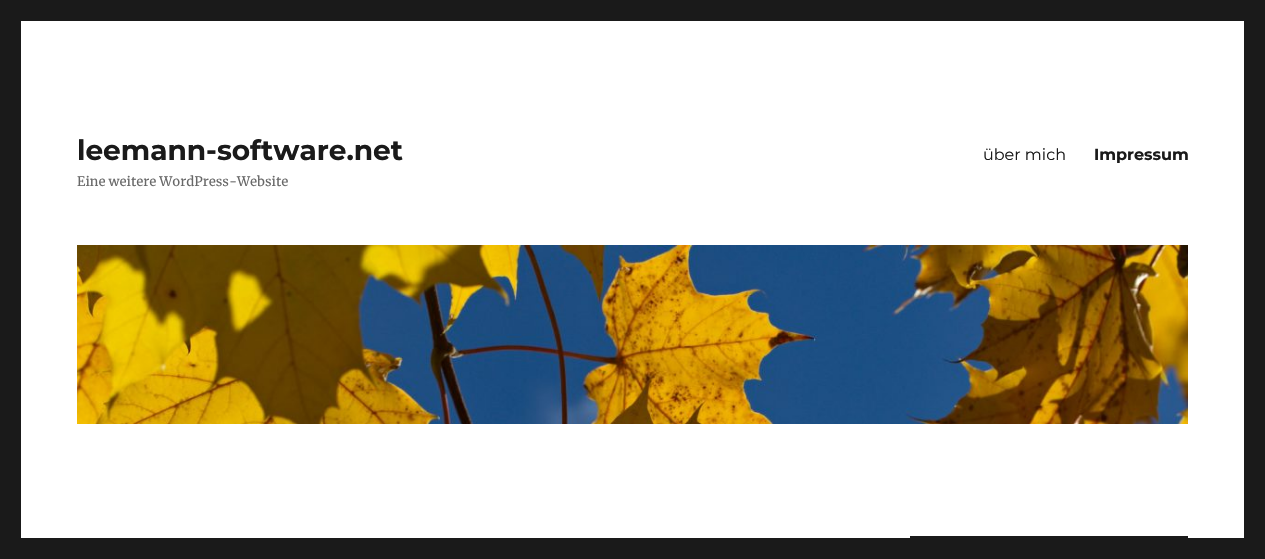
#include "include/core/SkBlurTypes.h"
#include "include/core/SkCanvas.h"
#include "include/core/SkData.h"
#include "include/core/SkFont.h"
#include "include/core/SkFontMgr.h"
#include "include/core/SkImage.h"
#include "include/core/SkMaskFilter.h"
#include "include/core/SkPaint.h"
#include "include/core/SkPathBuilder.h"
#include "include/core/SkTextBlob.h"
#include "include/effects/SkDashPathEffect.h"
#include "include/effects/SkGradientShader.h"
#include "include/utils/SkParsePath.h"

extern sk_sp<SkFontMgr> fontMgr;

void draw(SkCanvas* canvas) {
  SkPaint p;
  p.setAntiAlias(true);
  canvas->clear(SkColorSetRGB(26, 26, 26));
  p.setColor(SK_ColorWHITE);
  canvas->drawRect(SkRect::MakeLTRB(21, 21, 1244, 538), p);
  canvas->drawImageRect(SkImages::DeferredFromEncodedData(SkData::MakeFromFileName("images/1.png")), SkRect::MakeLTRB(77, 245, 1188, 424), SkSamplingOptions());
  p.setColor(SkColorSetRGB(26, 26, 26));
  canvas->drawRect(SkRect::MakeLTRB(910, 536, 1188, 538), p);
  SkFont font1(fontMgr->matchFamilyStyle("Montserrat", SkFontStyle(100, SkFontStyle::kNormal_Width, SkFontStyle::kUpright_Slant)), 28);
  font1.setSubpixel(true);
  canvas->drawString("leemann-software.net", 77, 160, font1, p);
  SkFont font2(fontMgr->matchFamilyStyle("Merriweather", SkFontStyle::Normal()), 13);
  font2.setSubpixel(true);
  p.setColor(SkColorSetRGB(104, 104, 104));
  canvas->drawString("Eine weitere WordPress-Website", 77, 186, font2, p);
  SkFont font3(fontMgr->matchFamilyStyle("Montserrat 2", SkFontStyle(100, SkFontStyle::kNormal_Width, SkFontStyle::kUpright_Slant)), 16);
  font3.setSubpixel(true);
  p.setColor(SkColorSetRGB(26, 26, 26));
  canvas->drawString("über mich", 983, 160, font3, p);
  SkFont font4(fontMgr->matchFamilyStyle("Montserrat", SkFontStyle(100, SkFontStyle::kNormal_Width, SkFontStyle::kUpright_Slant)), 16);
  font4.setSubpixel(true);
  canvas->drawString("Impressum", 1094, 160, font4, p);
}
